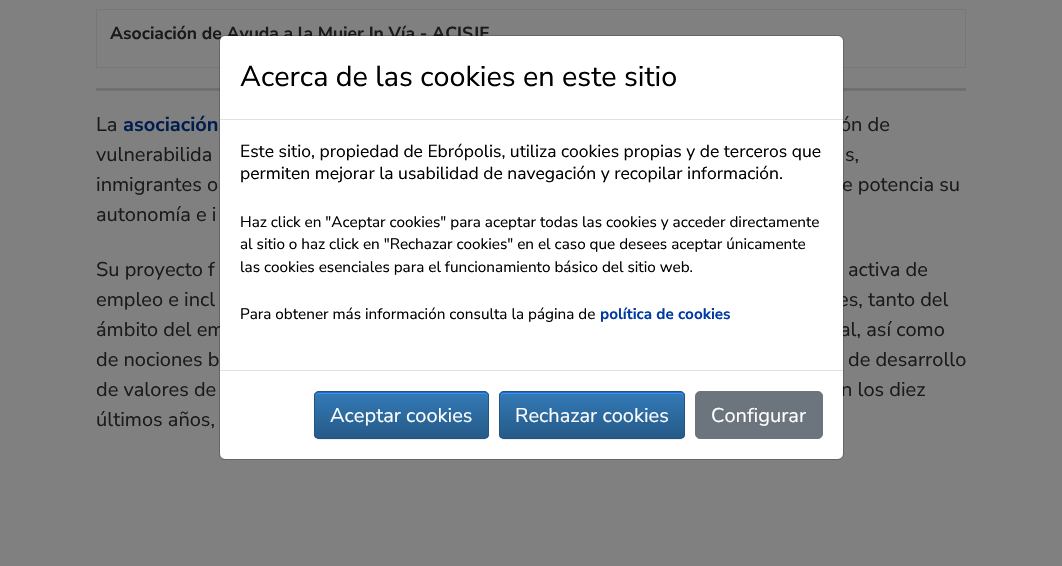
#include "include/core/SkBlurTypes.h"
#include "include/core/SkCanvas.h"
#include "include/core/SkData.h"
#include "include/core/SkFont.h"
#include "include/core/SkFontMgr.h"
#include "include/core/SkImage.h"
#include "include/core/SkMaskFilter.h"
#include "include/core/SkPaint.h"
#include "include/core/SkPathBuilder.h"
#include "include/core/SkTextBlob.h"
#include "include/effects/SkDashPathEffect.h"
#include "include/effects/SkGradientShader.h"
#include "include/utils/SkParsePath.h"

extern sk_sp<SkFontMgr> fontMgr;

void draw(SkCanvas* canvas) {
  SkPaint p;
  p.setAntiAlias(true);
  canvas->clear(SkColorSetRGB(128, 128, 128));
  p.setStyle(SkPaint::kStroke_Style);
  p.setStrokeWidth(1);
  p.setColor(SkColorSetRGB(119, 119, 119));
  canvas->drawRect(SkRect::MakeLTRB(96.5f, 9.5f, 965.5f, 67.5f), p);
  p.setStyle(SkPaint::kFill_Style);
  p.setColor(SkColorSetRGB(111, 111, 111));
  canvas->drawRect(SkRect::MakeLTRB(96, 88, 966, 91), p);
  SkFont font1(fontMgr->matchFamilyStyle("Nunito Sans", SkFontStyle::Bold()), 17.5f);
  font1.setSubpixel(true);
  p.setColor(SkColorSetRGB(26, 26, 26));
  canvas->drawString("Asociación de Ayuda a la Mujer In Vía - ACISJF", 110, 39, font1, p);
  SkFont font2(fontMgr->matchFamilyStyle("Nunito Sans", SkFontStyle::Normal()), 20);
  font2.setSubpixel(true);
  canvas->drawString("La", 96, 131, font2, p);
  SkFont font3(fontMgr->matchFamilyStyle("Nunito Sans", SkFontStyle::Bold()), 20);
  font3.setSubpixel(true);
  p.setColor(SkColorSetRGB(0, 29, 81));
  canvas->drawString("asociación", 123, 131, font3, p);
  p.setColor(SkColorSetRGB(26, 26, 26));
  canvas->drawString("ón de", 840, 131, font2, p);
  canvas->drawString("vulnerabilida", 96, 161, font2, p);
  canvas->drawString("s,", 845, 161, font2, p);
  canvas->drawString("inmigrantes o", 96, 191, font2, p);
  canvas->drawString("e potencia su", 842, 191, font2, p);
  canvas->drawString("autonomía e i", 96, 221, font2, p);
  canvas->drawString("Su proyecto f", 96, 276, font2, p);
  canvas->drawString("activa de", 848, 276, font2, p);
  canvas->drawString("empleo e incl", 96, 306, font2, p);
  canvas->drawString("es, tanto del", 838, 306, font2, p);
  canvas->drawString("ámbito del em", 96, 336, font2, p);
  canvas->drawString("al, así como", 840, 336, font2, p);
  canvas->drawString("de nociones b", 96, 366, font2, p);
  canvas->drawString("de desarrollo", 848, 366, font2, p);
  canvas->drawString("de valores de", 96, 396, font2, p);
  canvas->drawString("n los diez", 841, 396, font2, p);
  canvas->drawString("últimos años,", 96, 426, font2, p);
  p.setColor(SK_ColorWHITE);
  canvas->drawRoundRect(SkRect::MakeLTRB(220, 36, 843, 459), 5, 5, p);
  p.setStyle(SkPaint::kStroke_Style);
  p.setColor(SkColorSetARGB(51, 0, 0, 0));
  canvas->drawRoundRect(SkRect::MakeLTRB(219.5f, 35.5f, 843.5f, 459.5f), 5.5f, 5.5f, p);
  p.setStyle(SkPaint::kFill_Style);
  p.setColor(SkColorSetRGB(222, 226, 230));
  canvas->drawRect(SkRect::MakeLTRB(220, 119, 843, 120), p);
  SkFont font4(fontMgr->matchFamilyStyle("Nunito Sans", SkFontStyle::Normal()), 28.75f);
  font4.setSubpixel(true);
  p.setColor(SK_ColorBLACK);
  canvas->drawString("Acerca de las cookies en este sitio", 240, 86, font4, p);
  SkFont font5(fontMgr->matchFamilyStyle("Nunito Sans", SkFontStyle::Normal()), 17.5f);
  font5.setSubpixel(true);
  canvas->drawString("Este sitio, propiedad de Ebrópolis, utiliza cookies propias y de terceros que", 240, 157, font5, p);
  canvas->drawString("permiten mejorar la usabilidad de navegación y recopilar información.", 240, 179, font5, p);
  SkFont font6(fontMgr->matchFamilyStyle("Nunito Sans", SkFontStyle::Normal()), 15.3f);
  font6.setSubpixel(true);
  canvas->drawString("Haz click en \"Aceptar cookies\" para aceptar todas las cookies y acceder directamente", 240, 227, font6, p);
  canvas->drawString("al sitio o haz click en \"Rechazar cookies\" en el caso que desees aceptar únicamente", 240, 249, font6, p);
  canvas->drawString("las cookies esenciales para el funcionamiento básico del sitio web.", 240, 272, font6, p);
  canvas->drawString("Para obtener más información consulta la página de", 240, 319, font6, p);
  SkFont font7(fontMgr->matchFamilyStyle("Nunito Sans", SkFontStyle::Bold()), 15.3f);
  font7.setSubpixel(true);
  p.setColor(SkColorSetRGB(0, 57, 161));
  canvas->drawString("política de cookies", 600, 319, font7, p);
  p.setColor(SkColorSetRGB(222, 226, 230));
  canvas->drawRect(SkRect::MakeLTRB(220, 370, 843, 371), p);
  p.setColor(SkColorSetARGB(18, 0, 0, 0));
  p.setMaskFilter(SkMaskFilter::MakeBlur(kNormal_SkBlurStyle, 0.5f));
  canvas->drawRoundRect(SkRect::MakeLTRB(314, 393, 489, 440), 5, 5, p);
  p.setMaskFilter(nullptr);
  p.setColor(SkColorSetRGB(13, 110, 253));
  canvas->drawRoundRect(SkRect::MakeLTRB(314, 391, 489, 439), 5, 5, p);
  canvas->save();
  canvas->clipPath(SkPathBuilder().moveTo(319, 391).lineTo(484, 391).cubicTo(487, 391, 489, 393, 489, 396).lineTo(489, 434).cubicTo(489, 437, 487, 439, 484, 439).lineTo(319, 439).cubicTo(316, 439, 314, 437, 314, 434).lineTo(314, 396).cubicTo(314, 393, 316, 391, 319, 391).close().detach(), true);
  {
    const SkColor colors[] = {SkColorSetRGB(51, 122, 183), SkColorSetRGB(38, 90, 136)};
    const float stops[] = {0, 1};
    const SkPoint ends[] = {{401, 393}, {401, 438}};
    p.setShader(SkGradientShader::MakeLinear(ends, colors, stops, 2, SkTileMode::kClamp));
    p.setAlpha(255);
  }
  canvas->drawRect(SkRect::MakeLTRB(314, 393, 489, 438), p);
  canvas->restore();
  p.setShader(nullptr);
  p.setColor(SkColorSetRGB(82, 142, 193));
  canvas->drawPath(SkPathBuilder().moveTo(319, 394).lineTo(484, 394).cubicTo(486, 394, 488, 395, 488, 398).lineTo(488, 397).cubicTo(488, 395, 486, 393, 484, 393).lineTo(319, 393).cubicTo(317, 393, 315, 395, 315, 397).lineTo(315, 398).cubicTo(315, 395, 317, 394, 319, 394).close().detach(), p);
  p.setStyle(SkPaint::kStroke_Style);
  p.setColor(SkColorSetRGB(36, 85, 128));
  canvas->drawRoundRect(SkRect::MakeLTRB(314.5f, 391.5f, 488.5f, 438.5f), 4.5f, 4.5f, p);
  p.setStyle(SkPaint::kFill_Style);
  p.setColor(SK_ColorWHITE);
  canvas->drawString("Aceptar cookies", 330, 422, font2, p);
  p.setColor(SkColorSetARGB(18, 0, 0, 0));
  p.setMaskFilter(SkMaskFilter::MakeBlur(kNormal_SkBlurStyle, 0.5f));
  canvas->drawRoundRect(SkRect::MakeLTRB(499, 393, 685, 440), 5, 5, p);
  p.setMaskFilter(nullptr);
  p.setColor(SkColorSetRGB(13, 110, 253));
  canvas->drawRoundRect(SkRect::MakeLTRB(499, 391, 685, 439), 5, 5, p);
  canvas->save();
  canvas->clipPath(SkPathBuilder().moveTo(504, 391).lineTo(680, 391).cubicTo(683, 391, 685, 393, 685, 396).lineTo(685, 434).cubicTo(685, 437, 683, 439, 680, 439).lineTo(504, 439).cubicTo(501, 439, 499, 437, 499, 434).lineTo(499, 396).cubicTo(499, 393, 501, 391, 504, 391).close().detach(), true);
  {
    const SkColor colors[] = {SkColorSetRGB(51, 122, 183), SkColorSetRGB(38, 90, 136)};
    const float stops[] = {0, 1};
    const SkPoint ends[] = {{592, 393}, {592, 438}};
    p.setShader(SkGradientShader::MakeLinear(ends, colors, stops, 2, SkTileMode::kClamp));
    p.setAlpha(255);
  }
  canvas->drawRect(SkRect::MakeLTRB(499, 393, 685, 438), p);
  canvas->restore();
  p.setShader(nullptr);
  p.setColor(SkColorSetRGB(82, 142, 193));
  canvas->drawPath(SkPathBuilder().moveTo(504, 394).lineTo(680, 394).cubicTo(682, 394, 684, 395, 684, 398).cubicTo(684, 395, 683, 393, 680, 393).lineTo(503, 393).cubicTo(501, 394, 500, 396, 500, 398).cubicTo(500, 395, 502, 394, 504, 394).close().detach(), p);
  p.setStyle(SkPaint::kStroke_Style);
  p.setColor(SkColorSetRGB(36, 85, 128));
  canvas->drawRoundRect(SkRect::MakeLTRB(499.5f, 391.5f, 684.5f, 438.5f), 4.5f, 4.5f, p);
  p.setStyle(SkPaint::kFill_Style);
  p.setColor(SK_ColorWHITE);
  canvas->drawString("Rechazar cookies", 515, 422, font2, p);
  p.setColor(SkColorSetRGB(108, 117, 125));
  canvas->drawRoundRect(SkRect::MakeLTRB(695.5f, 391.5f, 822.5f, 438.5f), 4.5f, 4.5f, p);
  p.setStyle(SkPaint::kStroke_Style);
  canvas->drawRoundRect(SkRect::MakeLTRB(695.5f, 391.5f, 822.5f, 438.5f), 4.5f, 4.5f, p);
  p.setStyle(SkPaint::kFill_Style);
  p.setColor(SK_ColorWHITE);
  canvas->drawString("Configurar", 711, 422, font2, p);
}
